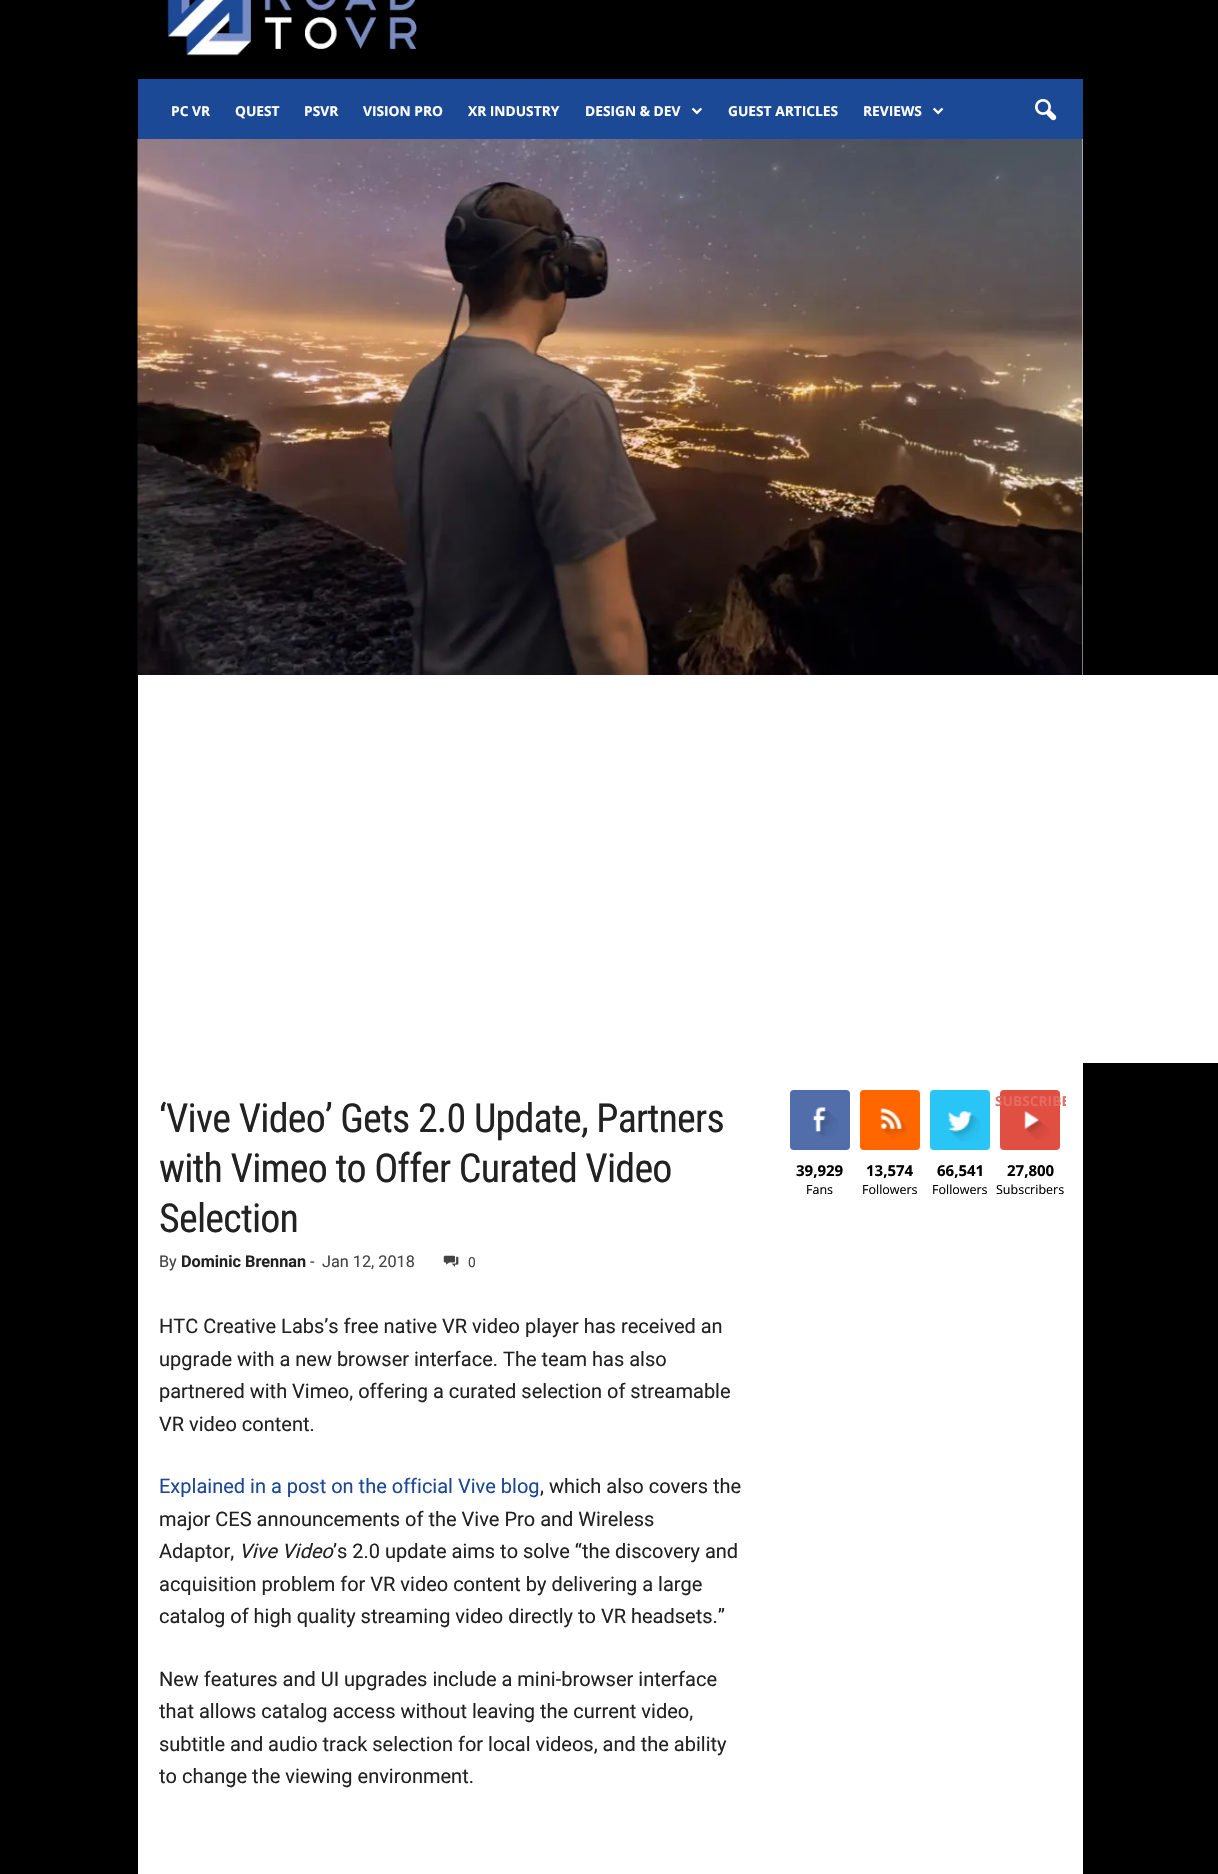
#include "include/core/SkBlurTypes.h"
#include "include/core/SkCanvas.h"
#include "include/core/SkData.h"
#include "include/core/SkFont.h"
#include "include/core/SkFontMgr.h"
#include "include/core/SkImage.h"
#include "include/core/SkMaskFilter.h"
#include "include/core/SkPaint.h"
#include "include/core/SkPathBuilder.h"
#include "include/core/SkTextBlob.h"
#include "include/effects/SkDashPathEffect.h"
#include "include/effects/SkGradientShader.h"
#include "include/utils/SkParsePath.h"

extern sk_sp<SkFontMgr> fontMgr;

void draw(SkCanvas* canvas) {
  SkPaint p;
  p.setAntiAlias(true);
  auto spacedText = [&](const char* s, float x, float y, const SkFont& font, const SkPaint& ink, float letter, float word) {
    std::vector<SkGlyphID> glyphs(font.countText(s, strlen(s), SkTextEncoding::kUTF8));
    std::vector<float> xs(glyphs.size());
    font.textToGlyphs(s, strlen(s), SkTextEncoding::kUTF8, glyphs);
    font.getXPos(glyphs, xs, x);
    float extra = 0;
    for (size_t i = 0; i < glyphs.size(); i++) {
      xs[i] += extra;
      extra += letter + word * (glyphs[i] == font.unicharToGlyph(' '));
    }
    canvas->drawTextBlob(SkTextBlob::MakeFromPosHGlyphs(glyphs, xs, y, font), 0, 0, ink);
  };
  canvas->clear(SK_ColorBLACK);
  canvas->drawImageRect(SkImages::DeferredFromEncodedData(SkData::MakeFromFileName("images/1.png")), SkRect::MakeLTRB(167, 0, 417, 56), SkSamplingOptions());
  p.setColor(SK_ColorWHITE);
  canvas->drawRect(SkRect::MakeLTRB(138, 139, 1083, 1874), p);
  canvas->drawImageRect(SkImages::DeferredFromEncodedData(SkData::MakeFromFileName("images/5.png")), SkRect::MakeLTRB(137, 138, 1083, 675), SkSamplingOptions());
  p.setColor(SkColorSetRGB(28, 73, 149));
  canvas->drawRect(SkRect::MakeLTRB(138, 79, 1083, 139), p);
  canvas->drawImageRect(SkImages::DeferredFromEncodedData(SkData::MakeFromFileName("images/2.png")), SkRect::MakeLTRB(691, 107, 702, 115), SkSamplingOptions());
  canvas->drawImageRect(SkImages::DeferredFromEncodedData(SkData::MakeFromFileName("images/3.png")), SkRect::MakeLTRB(933, 107, 944, 115), SkSamplingOptions());
  canvas->drawImageRect(SkImages::DeferredFromEncodedData(SkData::MakeFromFileName("images/4.png")), SkRect::MakeLTRB(1035, 99, 1057, 121), SkSamplingOptions());
  p.setColor(SK_ColorWHITE);
  canvas->drawRect(SkRect::MakeLTRB(1083, 675, 1218, 1063), p);
  canvas->drawImageRect(SkImages::DeferredFromEncodedData(SkData::MakeFromFileName("images/6.png")), SkRect::MakeLTRB(443, 1255, 459, 1267), SkSamplingOptions());
  p.setColor(SkColorSetRGB(81, 110, 171));
  canvas->drawRoundRect(SkRect::MakeLTRB(790, 1090, 850, 1150), 4, 4, p);
  canvas->drawImageRect(SkImages::DeferredFromEncodedData(SkData::MakeFromFileName("images/7.png")), SkRect::MakeLTRB(813, 1107, 839, 1138), SkSamplingOptions());
  p.setColor(SkColorSetRGB(255, 102, 0));
  canvas->drawRoundRect(SkRect::MakeLTRB(860, 1090, 920, 1150), 4, 4, p);
  canvas->drawImageRect(SkImages::DeferredFromEncodedData(SkData::MakeFromFileName("images/8.png")), SkRect::MakeLTRB(880, 1108, 908, 1139), SkSamplingOptions());
  p.setColor(SkColorSetRGB(41, 197, 246));
  canvas->drawRoundRect(SkRect::MakeLTRB(930, 1090, 990, 1150), 4, 4, p);
  canvas->drawImageRect(SkImages::DeferredFromEncodedData(SkData::MakeFromFileName("images/9.png")), SkRect::MakeLTRB(948, 1111, 980, 1141), SkSamplingOptions());
  p.setColor(SkColorSetRGB(225, 78, 66));
  canvas->drawRoundRect(SkRect::MakeLTRB(1000, 1090, 1060, 1150), 4, 4, p);
  canvas->drawImageRect(SkImages::DeferredFromEncodedData(SkData::MakeFromFileName("images/10.png")), SkRect::MakeLTRB(1024, 1111, 1049, 1140), SkSamplingOptions());
  SkFont font1(fontMgr->matchFamilyStyle("Open Sans", SkFontStyle::Bold()), 13.75f);
  font1.setSubpixel(true);
  p.setColor(SK_ColorWHITE);
  canvas->drawString("PC VR", 171, 116, font1, p);
  canvas->drawString("QUEST", 235, 116, font1, p);
  canvas->drawString("PSVR", 304, 116, font1, p);
  canvas->drawString("VISION PRO", 363, 116, font1, p);
  canvas->drawString("XR INDUSTRY", 468, 116, font1, p);
  canvas->drawString("DESIGN & DEV", 585, 116, font1, p);
  canvas->drawString("GUEST ARTICLES", 728, 116, font1, p);
  canvas->drawString("REVIEWS", 863, 116, font1, p);
  SkFont font2(fontMgr->matchFamilyStyle("Roboto Condensed", SkFontStyle::Normal()), 40);
  font2.setSubpixel(true);
  p.setColor(SkColorSetRGB(34, 34, 34));
  spacedText("‘Vive Video’ Gets 2.0 Update, Partners", 159, 1132, font2, p, -0.8f, 0);
  spacedText("with Vimeo to Offer Curated Video", 159, 1182, font2, p, -0.8f, 0);
  spacedText("Selection", 159, 1232, font2, p, -0.8f, 0);
  SkFont font3(fontMgr->matchFamilyStyle("Roboto", SkFontStyle::Normal()), 16.25f);
  font3.setSubpixel(true);
  p.setColor(SkColorSetRGB(68, 68, 68));
  canvas->drawString("By", 159, 1267, font3, p);
  SkFont font4(fontMgr->matchFamilyStyle("Roboto", SkFontStyle::Bold()), 16.25f);
  font4.setSubpixel(true);
  p.setColor(SkColorSetRGB(34, 34, 34));
  canvas->drawString("Dominic Brennan", 181, 1267, font4, p);
  p.setColor(SkColorSetRGB(68, 68, 68));
  canvas->drawString("-", 310, 1267, font3, p);
  canvas->drawString("Jan 12, 2018", 322, 1267, font3, p);
  SkFont font5(fontMgr->matchFamilyStyle("Roboto", SkFontStyle::Normal()), 13.75f);
  font5.setSubpixel(true);
  canvas->drawString("0", 468, 1267, font5, p);
  SkFont font6(fontMgr->matchFamilyStyle("Roboto", SkFontStyle::Normal()), 20);
  font6.setSubpixel(true);
  p.setColor(SkColorSetRGB(34, 34, 34));
  canvas->drawString("HTC Creative Labs’s free native VR video player has received an", 159, 1333, font6, p);
  canvas->drawString("upgrade with a new browser interface. The team has also", 159, 1366, font6, p);
  canvas->drawString("partnered with Vimeo, offering a curated selection of streamable", 159, 1398, font6, p);
  canvas->drawString("VR video content.", 159, 1431, font6, p);
  p.setColor(SkColorSetRGB(28, 73, 149));
  canvas->drawString("Explained in a post on the official Vive blog", 159, 1493, font6, p);
  p.setColor(SkColorSetRGB(34, 34, 34));
  canvas->drawString(", which also covers the", 540, 1493, font6, p);
  canvas->drawString("major CES announcements of the Vive Pro and Wireless", 159, 1526, font6, p);
  canvas->drawString("Adaptor,", 159, 1558, font6, p);
  SkFont font7(fontMgr->matchFamilyStyle("Roboto", SkFontStyle::Italic()), 20);
  font7.setSubpixel(true);
  canvas->drawString("Vive Video", 239, 1558, font7, p);
  canvas->drawString("’s 2.0 update aims to solve “the discovery and", 333, 1558, font6, p);
  canvas->drawString("acquisition problem for VR video content by delivering a large", 159, 1591, font6, p);
  canvas->drawString("catalog of high quality streaming video directly to VR headsets.”", 159, 1623, font6, p);
  canvas->drawString("New features and UI upgrades include a mini-browser interface", 159, 1686, font6, p);
  canvas->drawString("that allows catalog access without leaving the current video,", 159, 1718, font6, p);
  canvas->drawString("subtitle and audio track selection for local videos, and the ability", 159, 1751, font6, p);
  canvas->drawString("to change the viewing environment.", 159, 1783, font6, p);
  SkFont font8(fontMgr->matchFamilyStyle("Open Sans", SkFontStyle::Bold()), 15);
  font8.setSubpixel(true);
  p.setColor(SK_ColorBLACK);
  canvas->drawString("39,929", 796, 1176, font8, p);
  SkFont font9(fontMgr->matchFamilyStyle("Open Sans", SkFontStyle::Normal()), 12.5f);
  font9.setSubpixel(true);
  canvas->drawString("Fans", 806, 1194, font9, p);
  canvas->drawString("13,574", 866, 1176, font8, p);
  canvas->drawString("Followers", 862, 1194, font9, p);
  canvas->drawString("66,541", 937, 1176, font8, p);
  canvas->drawString("Followers", 932, 1194, font9, p);
  canvas->save();
  canvas->clipPath(SkPathBuilder().moveTo(999, 1090).lineTo(1062, 1090).cubicTo(1064, 1090, 1066, 1092, 1066, 1094).lineTo(1066, 1199).cubicTo(1066, 1201, 1064, 1203, 1062, 1203).lineTo(999, 1203).cubicTo(997, 1203, 995, 1201, 995, 1199).lineTo(995, 1094).cubicTo(995, 1092, 997, 1090, 999, 1090).close().detach(), true);
  p.setColor(SkColorSetRGB(230, 108, 98));
  canvas->drawString("SUBSCRIBE", 995, 1106, font1, p);
  canvas->restore();
  p.setColor(SK_ColorBLACK);
  canvas->drawString("27,800", 1007, 1176, font8, p);
  canvas->drawString("Subscribers", 996, 1194, font9, p);
}
